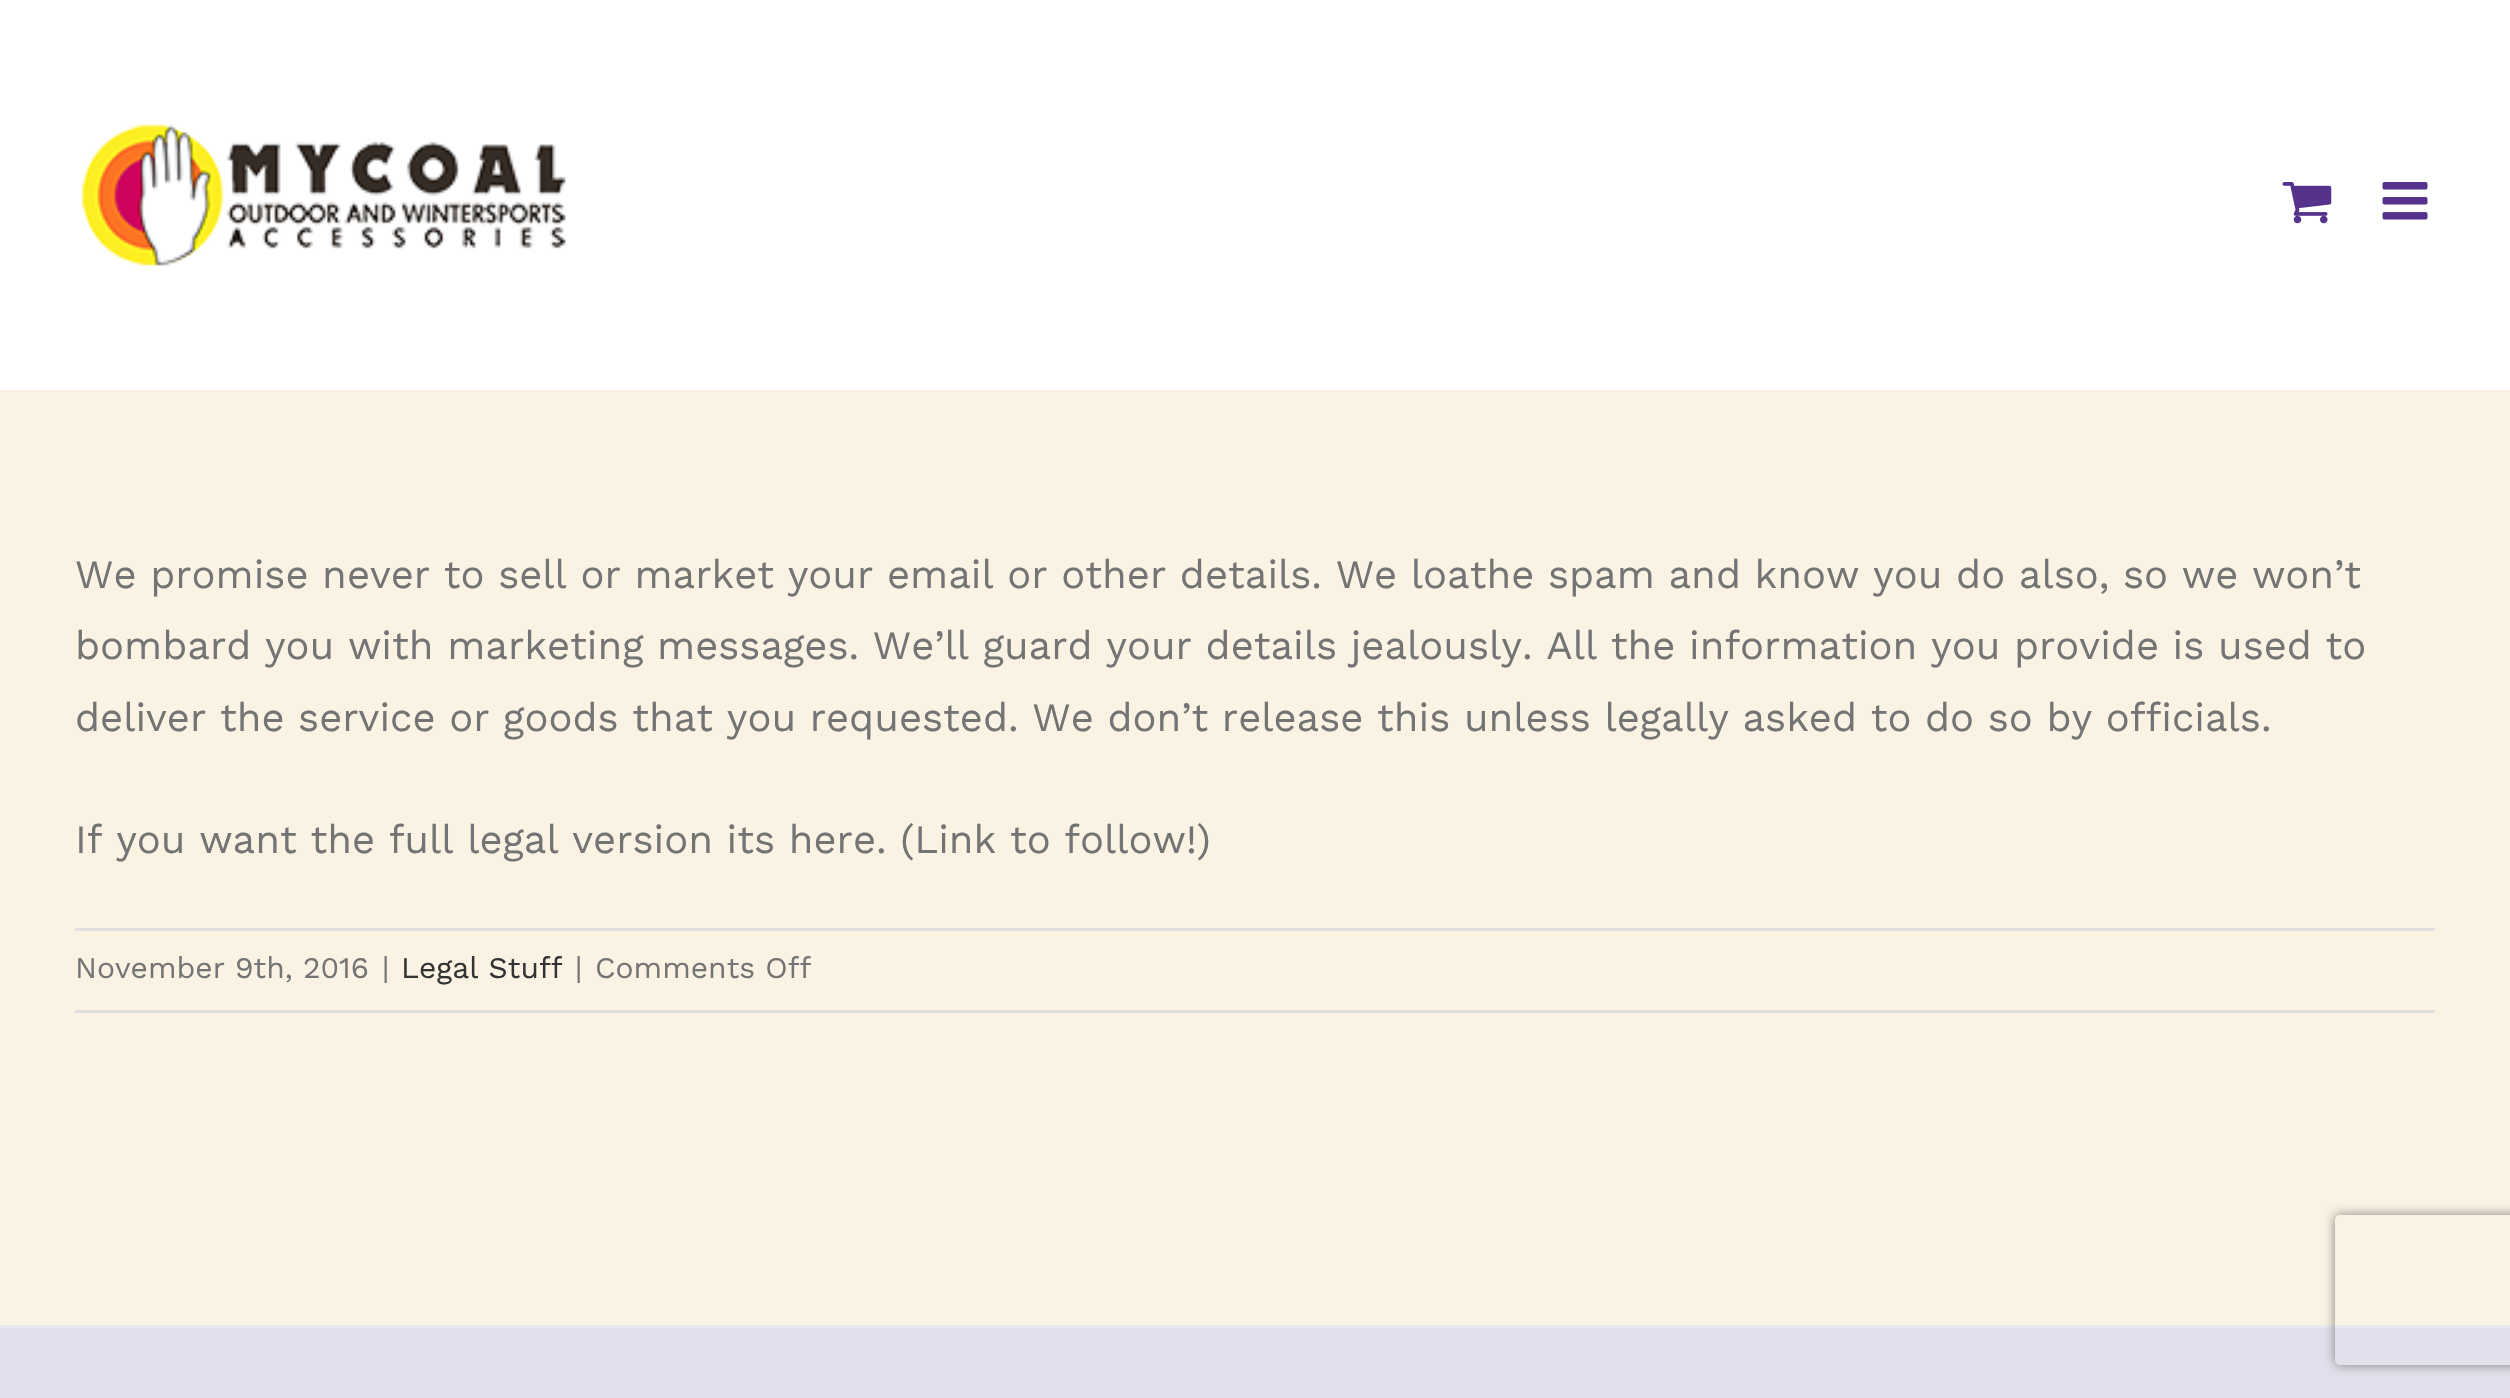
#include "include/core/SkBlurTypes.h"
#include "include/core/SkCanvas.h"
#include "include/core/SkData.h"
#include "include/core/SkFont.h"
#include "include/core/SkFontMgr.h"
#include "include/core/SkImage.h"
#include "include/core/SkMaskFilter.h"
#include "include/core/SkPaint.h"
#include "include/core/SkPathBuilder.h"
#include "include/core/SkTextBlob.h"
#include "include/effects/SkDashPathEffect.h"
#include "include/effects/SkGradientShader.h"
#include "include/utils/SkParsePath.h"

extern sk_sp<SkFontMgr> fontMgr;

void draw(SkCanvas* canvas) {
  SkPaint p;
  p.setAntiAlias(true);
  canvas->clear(SkColorSetRGB(250, 243, 227));
  p.setColor(SK_ColorWHITE);
  canvas->drawRect(SkRect::MakeLTRB(0, 0, 2510, 390), p);
  canvas->drawImageRect(SkImages::DeferredFromEncodedData(SkData::MakeFromFileName("images/1.png")), SkRect::MakeLTRB(81, 124, 566, 266), SkSamplingOptions());
  canvas->drawImageRect(SkImages::DeferredFromEncodedData(SkData::MakeFromFileName("images/2.png")), SkRect::MakeLTRB(2282, 182, 2332, 224), SkSamplingOptions());
  canvas->drawImageRect(SkImages::DeferredFromEncodedData(SkData::MakeFromFileName("images/3.png")), SkRect::MakeLTRB(2382, 182, 2428, 220), SkSamplingOptions());
  p.setColor(SkColorSetRGB(224, 222, 222));
  canvas->drawRect(SkRect::MakeLTRB(75, 928, 2435, 931), p);
  canvas->drawRect(SkRect::MakeLTRB(75, 1010, 2435, 1013), p);
  p.setColor(SkColorSetRGB(225, 225, 237));
  canvas->drawRect(SkRect::MakeLTRB(0, 1328, 2510, 1398), p);
  p.setColor(SkColorSetRGB(233, 234, 238));
  canvas->drawRect(SkRect::MakeLTRB(0, 1325, 2510, 1328), p);
  canvas->save();
  canvas->clipPath(SkPathBuilder(SkPathFillType::kEvenOdd).moveTo(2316, 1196).lineTo(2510, 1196).lineTo(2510, 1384).lineTo(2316, 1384).close().moveTo(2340, 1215).lineTo(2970, 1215).cubicTo(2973, 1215, 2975, 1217, 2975, 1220).lineTo(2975, 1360).cubicTo(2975, 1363, 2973, 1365, 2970, 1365).lineTo(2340, 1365).cubicTo(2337, 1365, 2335, 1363, 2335, 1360).lineTo(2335, 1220).cubicTo(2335, 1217, 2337, 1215, 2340, 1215).close().detach(), true);
  p.setColor(SkColorSetRGB(128, 128, 128));
  p.setMaskFilter(SkMaskFilter::MakeBlur(kNormal_SkBlurStyle, 6));
  canvas->drawRoundRect(SkRect::MakeLTRB(2335, 1215, 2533, 1365), 5, 5, p);
  p.setMaskFilter(nullptr);
  canvas->restore();
  SkFont font1(fontMgr->matchFamilyStyle("Work Sans", SkFontStyle::Normal()), 40);
  font1.setSubpixel(true);
  p.setColor(SkColorSetRGB(116, 116, 116));
  canvas->drawString("We promise never to sell or market your email or other details. We loathe spam and know you do also, so we won’t", 75, 588, font1, p);
  canvas->drawString("bombard you with marketing messages. We’ll guard your details jealously. All the information you provide is used to", 75, 659, font1, p);
  canvas->drawString("deliver the service or goods that you requested. We don’t release this unless legally asked to do so by officials.", 75, 731, font1, p);
  canvas->drawString("If you want the full legal version its here. (Link to follow!)", 75, 853, font1, p);
  SkFont font2(fontMgr->matchFamilyStyle("Work Sans", SkFontStyle::Normal()), 30);
  font2.setSubpixel(true);
  canvas->drawString("November 9th, 2016", 75, 978, font2, p);
  canvas->drawString("|", 382, 978, font2, p);
  p.setColor(SkColorSetRGB(51, 51, 51));
  canvas->drawString("Legal Stuff", 401, 978, font2, p);
  p.setColor(SkColorSetRGB(116, 116, 116));
  canvas->drawString("|", 575, 978, font2, p);
  canvas->drawString("Comments Off", 595, 978, font2, p);
}
